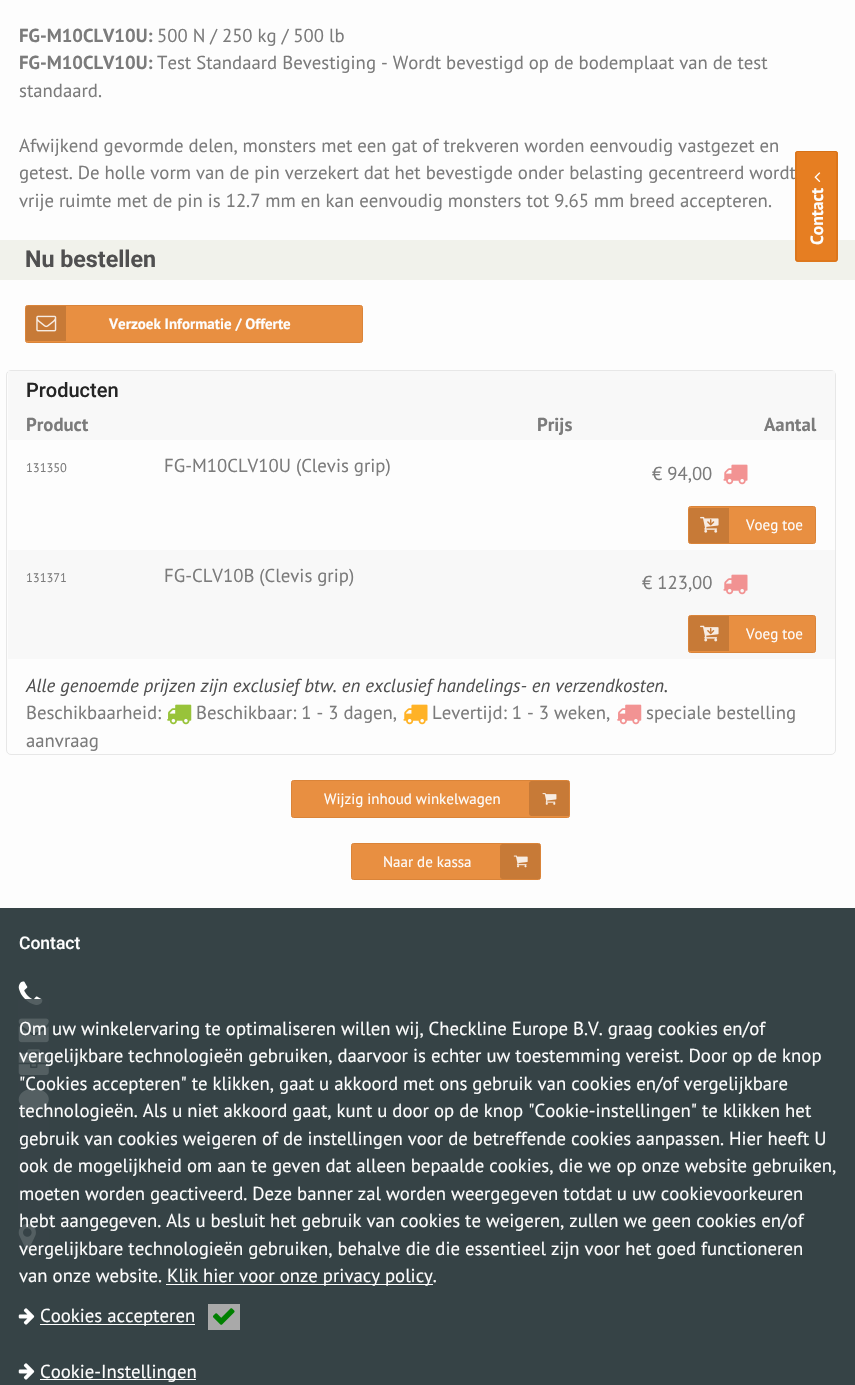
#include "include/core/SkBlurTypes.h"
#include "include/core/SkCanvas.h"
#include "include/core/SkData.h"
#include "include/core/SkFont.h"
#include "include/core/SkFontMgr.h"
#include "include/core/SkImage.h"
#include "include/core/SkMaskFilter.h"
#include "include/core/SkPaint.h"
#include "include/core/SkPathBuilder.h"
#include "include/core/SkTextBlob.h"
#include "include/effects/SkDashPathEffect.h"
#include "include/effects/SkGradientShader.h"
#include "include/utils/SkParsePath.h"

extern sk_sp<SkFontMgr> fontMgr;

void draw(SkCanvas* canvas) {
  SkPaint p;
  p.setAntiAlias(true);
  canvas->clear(SkColorSetRGB(54, 67, 70));
  p.setColor(SkColorSetRGB(253, 253, 253));
  canvas->drawRect(SkRect::MakeLTRB(0, 0, 855, 908), p);
  p.setColor(SkColorSetRGB(241, 242, 235));
  canvas->drawRect(SkRect::MakeLTRB(0, 240, 855, 280), p);
  p.setColor(SkColorSetRGB(232, 143, 65));
  canvas->drawRoundRect(SkRect::MakeLTRB(25.5f, 305.5f, 362.5f, 342.5f), 2, 2, p);
  p.setStyle(SkPaint::kStroke_Style);
  p.setStrokeWidth(1);
  p.setColor(SkColorSetRGB(218, 132, 57));
  canvas->drawRoundRect(SkRect::MakeLTRB(25.5f, 305.5f, 362.5f, 342.5f), 2, 2, p);
  p.setStyle(SkPaint::kFill_Style);
  p.setColor(SkColorSetRGB(199, 122, 55));
  canvas->drawPath(SkPathBuilder().moveTo(27, 306).lineTo(66, 306).lineTo(66, 341).lineTo(27, 341).cubicTo(26.5f, 341, 26, 340.5f, 26, 340).lineTo(26, 307).cubicTo(26, 306.5f, 26.5f, 306, 27, 306).close().detach(), p);
  canvas->drawImageRect(SkImages::DeferredFromEncodedData(SkData::MakeFromFileName("images/1.png")), SkRect::MakeLTRB(36, 315, 57, 332), SkSamplingOptions());
  p.setStyle(SkPaint::kStroke_Style);
  p.setColor(SkColorSetRGB(231, 231, 231));
  canvas->drawRoundRect(SkRect::MakeLTRB(6.5f, 370.5f, 835.5f, 754.5f), 4.5f, 4.5f, p);
  p.setStyle(SkPaint::kFill_Style);
  p.setColor(SkColorSetRGB(248, 248, 248));
  canvas->drawRect(SkRect::MakeLTRB(8, 371, 835, 440), p);
  canvas->drawImageRect(SkImages::DeferredFromEncodedData(SkData::MakeFromFileName("images/2.png")), SkRect::MakeLTRB(723, 464, 748, 485), SkSamplingOptions());
  p.setColor(SkColorSetRGB(232, 143, 65));
  canvas->drawRoundRect(SkRect::MakeLTRB(688.5f, 506.5f, 815.5f, 543.5f), 2, 2, p);
  p.setStyle(SkPaint::kStroke_Style);
  p.setColor(SkColorSetRGB(218, 132, 57));
  canvas->drawRoundRect(SkRect::MakeLTRB(688.5f, 506.5f, 815.5f, 543.5f), 2, 2, p);
  p.setStyle(SkPaint::kFill_Style);
  p.setColor(SkColorSetRGB(199, 122, 55));
  canvas->drawPath(SkPathBuilder().moveTo(690, 508).lineTo(729, 508).lineTo(729, 543).lineTo(690, 543).cubicTo(689.5f, 543, 689, 542.5f, 689, 542).lineTo(689, 509).cubicTo(689, 508.5f, 689.5f, 508, 690, 508).close().detach(), p);
  canvas->drawImageRect(SkImages::DeferredFromEncodedData(SkData::MakeFromFileName("images/3.png")), SkRect::MakeLTRB(700, 516, 719, 533), SkSamplingOptions());
  p.setColor(SkColorSetRGB(248, 248, 248));
  canvas->drawRect(SkRect::MakeLTRB(8, 550, 835, 659), p);
  canvas->drawImageRect(SkImages::DeferredFromEncodedData(SkData::MakeFromFileName("images/4.png")), SkRect::MakeLTRB(723, 574, 748, 595), SkSamplingOptions());
  p.setColor(SkColorSetRGB(232, 143, 65));
  canvas->drawRoundRect(SkRect::MakeLTRB(688.5f, 615.5f, 815.5f, 652.5f), 2, 2, p);
  p.setStyle(SkPaint::kStroke_Style);
  p.setColor(SkColorSetRGB(218, 132, 57));
  canvas->drawRoundRect(SkRect::MakeLTRB(688.5f, 615.5f, 815.5f, 652.5f), 2, 2, p);
  p.setStyle(SkPaint::kFill_Style);
  p.setColor(SkColorSetRGB(199, 122, 55));
  canvas->drawPath(SkPathBuilder().moveTo(690, 616).lineTo(729, 616).lineTo(729, 651).lineTo(690, 651).cubicTo(689.5f, 651, 689, 650.5f, 689, 650).lineTo(689, 617).cubicTo(689, 616.5f, 689.5f, 616, 690, 616).close().detach(), p);
  canvas->drawImageRect(SkImages::DeferredFromEncodedData(SkData::MakeFromFileName("images/5.png")), SkRect::MakeLTRB(700, 625, 719, 642), SkSamplingOptions());
  canvas->drawImageRect(SkImages::DeferredFromEncodedData(SkData::MakeFromFileName("images/6.png")), SkRect::MakeLTRB(167, 704, 192, 725), SkSamplingOptions());
  canvas->drawImageRect(SkImages::DeferredFromEncodedData(SkData::MakeFromFileName("images/7.png")), SkRect::MakeLTRB(403, 704, 428, 725), SkSamplingOptions());
  canvas->drawImageRect(SkImages::DeferredFromEncodedData(SkData::MakeFromFileName("images/8.png")), SkRect::MakeLTRB(617, 704, 642, 725), SkSamplingOptions());
  p.setColor(SkColorSetRGB(232, 143, 65));
  canvas->drawRoundRect(SkRect::MakeLTRB(291.5f, 780.5f, 569.5f, 817.5f), 2, 2, p);
  p.setStyle(SkPaint::kStroke_Style);
  p.setColor(SkColorSetRGB(218, 132, 57));
  canvas->drawRoundRect(SkRect::MakeLTRB(291.5f, 780.5f, 569.5f, 817.5f), 2, 2, p);
  p.setStyle(SkPaint::kFill_Style);
  p.setColor(SkColorSetRGB(199, 122, 55));
  canvas->drawPath(SkPathBuilder().moveTo(531.5f, 781).lineTo(569, 781).lineTo(569, 816).lineTo(531.5f, 816).cubicTo(530, 816, 529, 815, 529, 813.5f).lineTo(529, 783.5f).cubicTo(529, 782, 530, 781, 531.5f, 781).close().detach(), p);
  canvas->drawImageRect(SkImages::DeferredFromEncodedData(SkData::MakeFromFileName("images/9.png")), SkRect::MakeLTRB(542, 793, 557, 805), SkSamplingOptions());
  p.setColor(SkColorSetRGB(232, 143, 65));
  canvas->drawRoundRect(SkRect::MakeLTRB(351.5f, 843.5f, 540.5f, 879.5f), 2, 2, p);
  p.setStyle(SkPaint::kStroke_Style);
  p.setColor(SkColorSetRGB(218, 132, 57));
  canvas->drawRoundRect(SkRect::MakeLTRB(351.5f, 843.5f, 540.5f, 879.5f), 2, 2, p);
  p.setStyle(SkPaint::kFill_Style);
  p.setColor(SkColorSetRGB(199, 122, 55));
  canvas->drawPath(SkPathBuilder().moveTo(502.5f, 844).lineTo(540, 844).lineTo(540, 879).lineTo(502.5f, 879).cubicTo(501, 879, 500, 878, 500, 876.5f).lineTo(500, 846.5f).cubicTo(500, 845, 501, 844, 502.5f, 844).close().detach(), p);
  canvas->drawImageRect(SkImages::DeferredFromEncodedData(SkData::MakeFromFileName("images/10.png")), SkRect::MakeLTRB(513, 855, 528, 868), SkSamplingOptions());
  canvas->drawImageRect(SkImages::DeferredFromEncodedData(SkData::MakeFromFileName("images/12.png")), SkRect::MakeLTRB(18, 981, 43, 1005), SkSamplingOptions());
  canvas->drawImageRect(SkImages::DeferredFromEncodedData(SkData::MakeFromFileName("images/13.png")), SkRect::MakeLTRB(18, 1018, 49, 1043), SkSamplingOptions());
  canvas->drawImageRect(SkImages::DeferredFromEncodedData(SkData::MakeFromFileName("images/14.png")), SkRect::MakeLTRB(18, 1049, 49, 1075), SkSamplingOptions());
  canvas->drawImageRect(SkImages::DeferredFromEncodedData(SkData::MakeFromFileName("images/15.png")), SkRect::MakeLTRB(18, 1088, 49, 1115), SkSamplingOptions());
  canvas->drawImageRect(SkImages::DeferredFromEncodedData(SkData::MakeFromFileName("images/16.png")), SkRect::MakeLTRB(18, 1223, 36, 1250), SkSamplingOptions());
  p.setColor(SkColorSetARGB(217, 54, 67, 70));
  canvas->drawRect(SkRect::MakeLTRB(18, 999, 49, 1250), p);
  p.setColor(SK_ColorWHITE);
  canvas->drawRect(SkRect::MakeLTRB(166, 1284, 433, 1285), p);
  canvas->drawImageRect(SkImages::DeferredFromEncodedData(SkData::MakeFromFileName("images/17.png")), SkRect::MakeLTRB(18, 1308, 35, 1325), SkSamplingOptions());
  canvas->drawRect(SkRect::MakeLTRB(40, 1324, 195, 1325), p);
  p.setColor(SkColorSetRGB(169, 169, 169));
  canvas->drawRect(SkRect::MakeLTRB(208, 1304, 240, 1330), p);
  canvas->drawImageRect(SkImages::DeferredFromEncodedData(SkData::MakeFromFileName("images/18.png")), SkRect::MakeLTRB(213, 1308, 235, 1325), SkSamplingOptions());
  canvas->drawImageRect(SkImages::DeferredFromEncodedData(SkData::MakeFromFileName("images/19.png")), SkRect::MakeLTRB(18, 1363, 35, 1380), SkSamplingOptions());
  p.setColor(SK_ColorWHITE);
  canvas->drawRect(SkRect::MakeLTRB(40, 1379, 196, 1380), p);
  SkFont font1(fontMgr->matchFamilyStyle("PT Sans", SkFontStyle::Bold()), 18.75f);
  font1.setSubpixel(true);
  p.setColor(SkColorSetRGB(123, 123, 123));
  canvas->drawString("FG-M10CLV10U:", 19, 42, font1, p);
  SkFont font2(fontMgr->matchFamilyStyle("PT Sans", SkFontStyle::Normal()), 18.75f);
  font2.setSubpixel(true);
  canvas->drawString("500 N / 250 kg / 500 lb", 157, 42, font2, p);
  canvas->drawString("FG-M10CLV10U:", 19, 69, font1, p);
  canvas->drawString("Test Standaard Bevestiging - Wordt bevestigd op de bodemplaat van de test", 157, 69, font2, p);
  canvas->drawString("standaard.", 19, 97, font2, p);
  canvas->drawString("Afwijkend gevormde delen, monsters met een gat of trekveren worden eenvoudig vastgezet en", 19, 152, font2, p);
  canvas->drawString("getest. De holle vorm van de pin verzekert dat het bevestigde onder belasting gecentreerd wordt", 19, 179, font2, p);
  canvas->drawString("vrije ruimte met de pin is 12.7 mm en kan eenvoudig monsters tot 9.65 mm breed accepteren.", 19, 207, font2, p);
  SkFont font3(fontMgr->matchFamilyStyle("Roboto", SkFontStyle::Bold()), 23.25f);
  font3.setSubpixel(true);
  p.setColor(SkColorSetRGB(80, 80, 80));
  canvas->drawString("Nu bestellen", 25, 267, font3, p);
  SkFont font4(fontMgr->matchFamilyStyle("PT Sans", SkFontStyle::Bold()), 15);
  font4.setSubpixel(true);
  p.setColor(SkColorSetRGB(253, 253, 253));
  canvas->drawString("Verzoek Informatie / Offerte", 109, 329, font4, p);
  SkFont font5(fontMgr->matchFamilyStyle("Roboto", SkFontStyle(500, SkFontStyle::kNormal_Width, SkFontStyle::kUpright_Slant)), 20);
  font5.setSubpixel(true);
  p.setColor(SkColorSetRGB(36, 36, 36));
  canvas->drawString("Producten", 26, 397, font5, p);
  p.setColor(SkColorSetRGB(123, 123, 123));
  canvas->drawString("Product", 26, 431, font1, p);
  canvas->drawString("Prijs", 537, 431, font1, p);
  canvas->drawString("Aantal", 764, 431, font1, p);
  SkFont font6(fontMgr->matchFamilyStyle("PT Sans", SkFontStyle::Normal()), 12.5f);
  font6.setSubpixel(true);
  canvas->drawString("131350", 26, 472, font6, p);
  canvas->drawString("FG-M10CLV10U (Clevis grip)", 164, 472, font2, p);
  canvas->drawString("€ 94,00", 652, 480, font2, p);
  SkFont font7(fontMgr->matchFamilyStyle("PT Sans", SkFontStyle::Normal()), 15);
  font7.setSubpixel(true);
  p.setColor(SkColorSetRGB(253, 253, 253));
  canvas->drawString("Voeg toe", 746, 530, font7, p);
  p.setColor(SkColorSetRGB(123, 123, 123));
  canvas->drawString("131371", 26, 582, font6, p);
  canvas->drawString("FG-CLV10B (Clevis grip)", 164, 582, font2, p);
  canvas->drawString("€ 123,00", 642, 589, font2, p);
  p.setColor(SkColorSetRGB(253, 253, 253));
  canvas->drawString("Voeg toe", 746, 639, font7, p);
  SkFont font8(fontMgr->matchFamilyStyle("PT Sans", SkFontStyle::Italic()), 18.75f);
  font8.setSubpixel(true);
  p.setColor(SkColorSetRGB(80, 80, 80));
  canvas->drawString("Alle genoemde prijzen zijn exclusief btw. en exclusief handelings- en verzendkosten.", 26, 692, font8, p);
  p.setColor(SkColorSetRGB(123, 123, 123));
  canvas->drawString("Beschikbaarheid:", 26, 719, font2, p);
  canvas->drawString("Beschikbaar: 1 - 3 dagen,", 196, 719, font2, p);
  canvas->drawString("Levertijd: 1 - 3 weken,", 432, 719, font2, p);
  canvas->drawString("speciale bestelling", 646, 719, font2, p);
  canvas->drawString("aanvraag", 26, 747, font2, p);
  p.setColor(SkColorSetRGB(253, 253, 253));
  canvas->drawString("Wijzig inhoud winkelwagen", 324, 804, font7, p);
  canvas->drawString("Naar de kassa", 383, 867, font7, p);
  p.setColor(SkColorSetRGB(230, 126, 34));
  canvas->drawPath(SkPathBuilder().moveTo(795, 259).lineTo(795, 153).cubicTo(795, 152, 796, 151, 798, 151).lineTo(835, 151).cubicTo(837, 151, 838, 152, 838, 153).lineTo(838, 259).cubicTo(838, 260, 837, 262, 835, 262).lineTo(798, 262).cubicTo(796, 262, 795, 260, 795, 259).close().detach(), p);
  p.setStyle(SkPaint::kStroke_Style);
  p.setStrokeWidth(1.2f);
  p.setColor(SkColorSetRGB(214, 113, 24));
  canvas->drawPath(SkPathBuilder().moveTo(796, 259).lineTo(796, 153.5f).cubicTo(796, 152.5f, 797, 151.5f, 798, 151.5f).lineTo(835.5f, 151.5f).cubicTo(836.5f, 151.5f, 837, 152.5f, 837, 153.5f).lineTo(837, 259).cubicTo(837, 260, 836.5f, 261, 835.5f, 261).lineTo(798, 261).cubicTo(797, 261, 796, 260, 796, 259).close().detach(), p);
  canvas->drawImageRect(SkImages::DeferredFromEncodedData(SkData::MakeFromFileName("images/11.png")), SkRect::MakeLTRB(814, 172, 821, 182), SkSamplingOptions());
  SkFont font9(fontMgr->matchFamilyStyle("PT Sans", SkFontStyle::Bold()), 17.5f);
  font9.setSubpixel(true);
  p.setStyle(SkPaint::kFill_Style);
  p.setColor(SkColorSetRGB(253, 253, 253));
  canvas->save();
  canvas->rotate(-90, 823, 245);
  canvas->drawString("Contact", 823, 245, font9, p);
  canvas->restore();
  SkFont font10(fontMgr->matchFamilyStyle("Roboto", SkFontStyle(500, SkFontStyle::kNormal_Width, SkFontStyle::kUpright_Slant)), 17.5f);
  font10.setSubpixel(true);
  canvas->drawString("Contact", 19, 949, font10, p);
  canvas->drawString("Om uw winkelervaring te optimaliseren willen wij, Checkline Europe B.V. graag cookies en/of", 19, 1035, font2, p);
  canvas->drawString("vergelijkbare technologieën gebruiken, daarvoor is echter uw toestemming vereist. Door op de knop", 19, 1062, font2, p);
  canvas->drawString("\"Cookies accepteren\" te klikken, gaat u akkoord met ons gebruik van cookies en/of vergelijkbare", 19, 1090, font2, p);
  canvas->drawString("technologieën. Als u niet akkoord gaat, kunt u door op de knop \"Cookie-instellingen\" te klikken het", 19, 1117, font2, p);
  canvas->drawString("gebruik van cookies weigeren of de instellingen voor de betreffende cookies aanpassen. Hier heeft U", 19, 1145, font2, p);
  canvas->drawString("ook de mogelijkheid om aan te geven dat alleen bepaalde cookies, die we op onze website gebruiken,", 19, 1172, font2, p);
  canvas->drawString("moeten worden geactiveerd. Deze banner zal worden weergegeven totdat u uw cookievoorkeuren", 19, 1200, font2, p);
  canvas->drawString("hebt aangegeven. Als u besluit het gebruik van cookies te weigeren, zullen we geen cookies en/of", 19, 1227, font2, p);
  canvas->drawString("vergelijkbare technologieën gebruiken, behalve die die essentieel zijn voor het goed functioneren", 19, 1255, font2, p);
  canvas->drawString("van onze website.", 19, 1282, font2, p);
  canvas->drawString("Klik hier voor onze privacy policy.", 167, 1282, font2, p);
  canvas->drawString("Cookies accepteren", 40, 1322, font2, p);
  canvas->drawString("Cookie-Instellingen", 40, 1378, font2, p);
}
